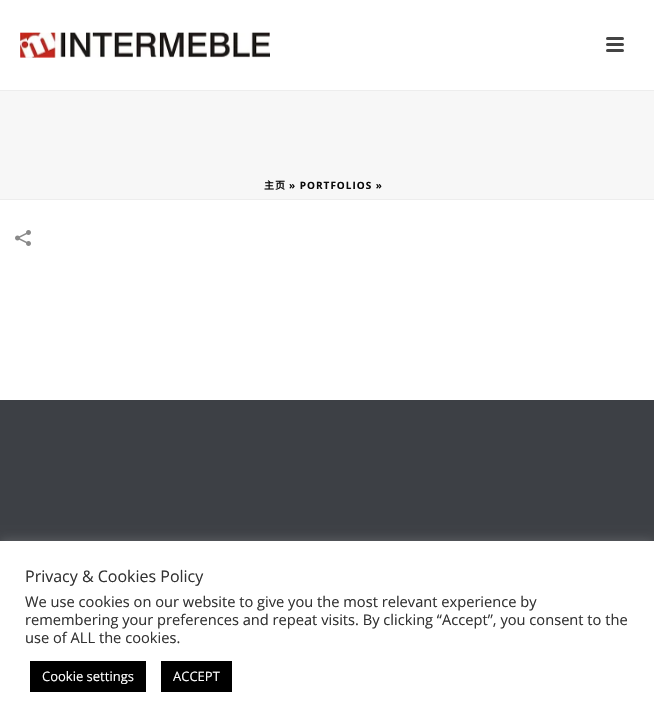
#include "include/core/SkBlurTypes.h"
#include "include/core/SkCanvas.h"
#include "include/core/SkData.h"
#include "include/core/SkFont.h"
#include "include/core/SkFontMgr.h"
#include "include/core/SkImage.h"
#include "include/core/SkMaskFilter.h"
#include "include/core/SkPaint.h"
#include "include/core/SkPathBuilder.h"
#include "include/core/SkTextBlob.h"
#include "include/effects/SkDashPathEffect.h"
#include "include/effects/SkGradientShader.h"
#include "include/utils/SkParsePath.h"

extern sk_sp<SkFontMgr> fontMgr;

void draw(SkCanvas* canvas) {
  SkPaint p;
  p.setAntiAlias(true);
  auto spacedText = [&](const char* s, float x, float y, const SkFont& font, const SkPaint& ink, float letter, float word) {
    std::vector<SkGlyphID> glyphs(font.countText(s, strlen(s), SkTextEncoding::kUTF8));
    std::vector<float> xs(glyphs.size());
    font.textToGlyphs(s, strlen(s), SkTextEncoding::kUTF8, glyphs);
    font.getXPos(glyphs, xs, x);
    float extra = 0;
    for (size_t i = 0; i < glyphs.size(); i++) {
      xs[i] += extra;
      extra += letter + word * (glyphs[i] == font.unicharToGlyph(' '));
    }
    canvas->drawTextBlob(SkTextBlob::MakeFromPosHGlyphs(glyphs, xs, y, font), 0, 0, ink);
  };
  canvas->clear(SK_ColorWHITE);
  p.setColor(SkColorSetRGB(247, 247, 247));
  canvas->drawRect(SkRect::MakeLTRB(0, 91, 654, 199), p);
  p.setColor(SkColorSetRGB(237, 237, 237));
  canvas->drawRect(SkRect::MakeLTRB(0, 199, 654, 200), p);
  canvas->drawRect(SkRect::MakeLTRB(0, 90, 654, 91), p);
  canvas->drawImageRect(SkImages::DeferredFromEncodedData(SkData::MakeFromFileName("images/1.png")), SkRect::MakeLTRB(20, 32, 270, 58), SkSamplingOptions());
  p.setColor(SkColorSetRGB(68, 68, 68));
  canvas->drawRoundRect(SkRect::MakeLTRB(606, 37, 624, 40), 1.5f, 1.5f, p);
  canvas->drawRoundRect(SkRect::MakeLTRB(606, 43, 624, 46), 1.5f, 1.5f, p);
  canvas->drawRoundRect(SkRect::MakeLTRB(606, 49, 624, 52), 1.5f, 1.5f, p);
  canvas->drawImageRect(SkImages::DeferredFromEncodedData(SkData::MakeFromFileName("images/2.png")), SkRect::MakeLTRB(15, 230, 31, 246), SkSamplingOptions());
  p.setColor(SkColorSetRGB(61, 64, 69));
  canvas->drawRect(SkRect::MakeLTRB(0, 400, 654, 541), p);
  p.setColor(SkColorSetARGB(77, 172, 171, 171));
  p.setMaskFilter(SkMaskFilter::MakeBlur(kNormal_SkBlurStyle, 5));
  canvas->drawRect(SkRect::MakeLTRB(0, 540, 654, 721), p);
  p.setMaskFilter(nullptr);
  p.setColor(SK_ColorWHITE);
  canvas->drawRect(SkRect::MakeLTRB(0, 541, 654, 722), p);
  p.setColor(SK_ColorBLACK);
  canvas->drawRect(SkRect::MakeLTRB(30, 661, 146, 692), p);
  canvas->drawRect(SkRect::MakeLTRB(161, 661, 232, 692), p);
  SkFont font1(fontMgr->matchFamilyStyle("Noto Sans CJK SC", SkFontStyle::Bold()), 10);
  font1.setSubpixel(true);
  p.setColor(SkColorSetRGB(10, 10, 10));
  spacedText("主页", 264, 189, font1, p, 1, 0);
  SkFont font2(fontMgr->matchFamilyStyle("Open Sans", SkFontStyle::Bold()), 10);
  font2.setSubpixel(true);
  spacedText("» PORTFOLIOS »", 289, 189, font2, p, 1, 0);
  SkFont font3(fontMgr->matchFamilyStyle("Open Sans", SkFontStyle::Normal()), 16);
  font3.setSubpixel(true);
  p.setColor(SkColorSetRGB(51, 51, 51));
  canvas->drawString("Privacy & Cookies Policy", 25, 582, font3, p);
  SkFont font4(fontMgr->matchFamilyStyle("Open Sans", SkFontStyle::Normal()), 14.65f);
  font4.setSubpixel(true);
  canvas->drawString("We use cookies on our website to give you the most relevant experience by", 25, 607, font4, p);
  canvas->drawString("remembering your preferences and repeat visits. By clicking “Accept”, you consent to the", 25, 625, font4, p);
  canvas->drawString("use of ALL the cookies.", 25, 643, font4, p);
  SkFont font5(fontMgr->matchFamilyStyle("Open Sans", SkFontStyle::Normal()), 13);
  font5.setSubpixel(true);
  p.setColor(SK_ColorWHITE);
  canvas->drawString("Cookie settings", 42, 681, font5, p);
  canvas->drawString("ACCEPT", 173, 681, font5, p);
}
